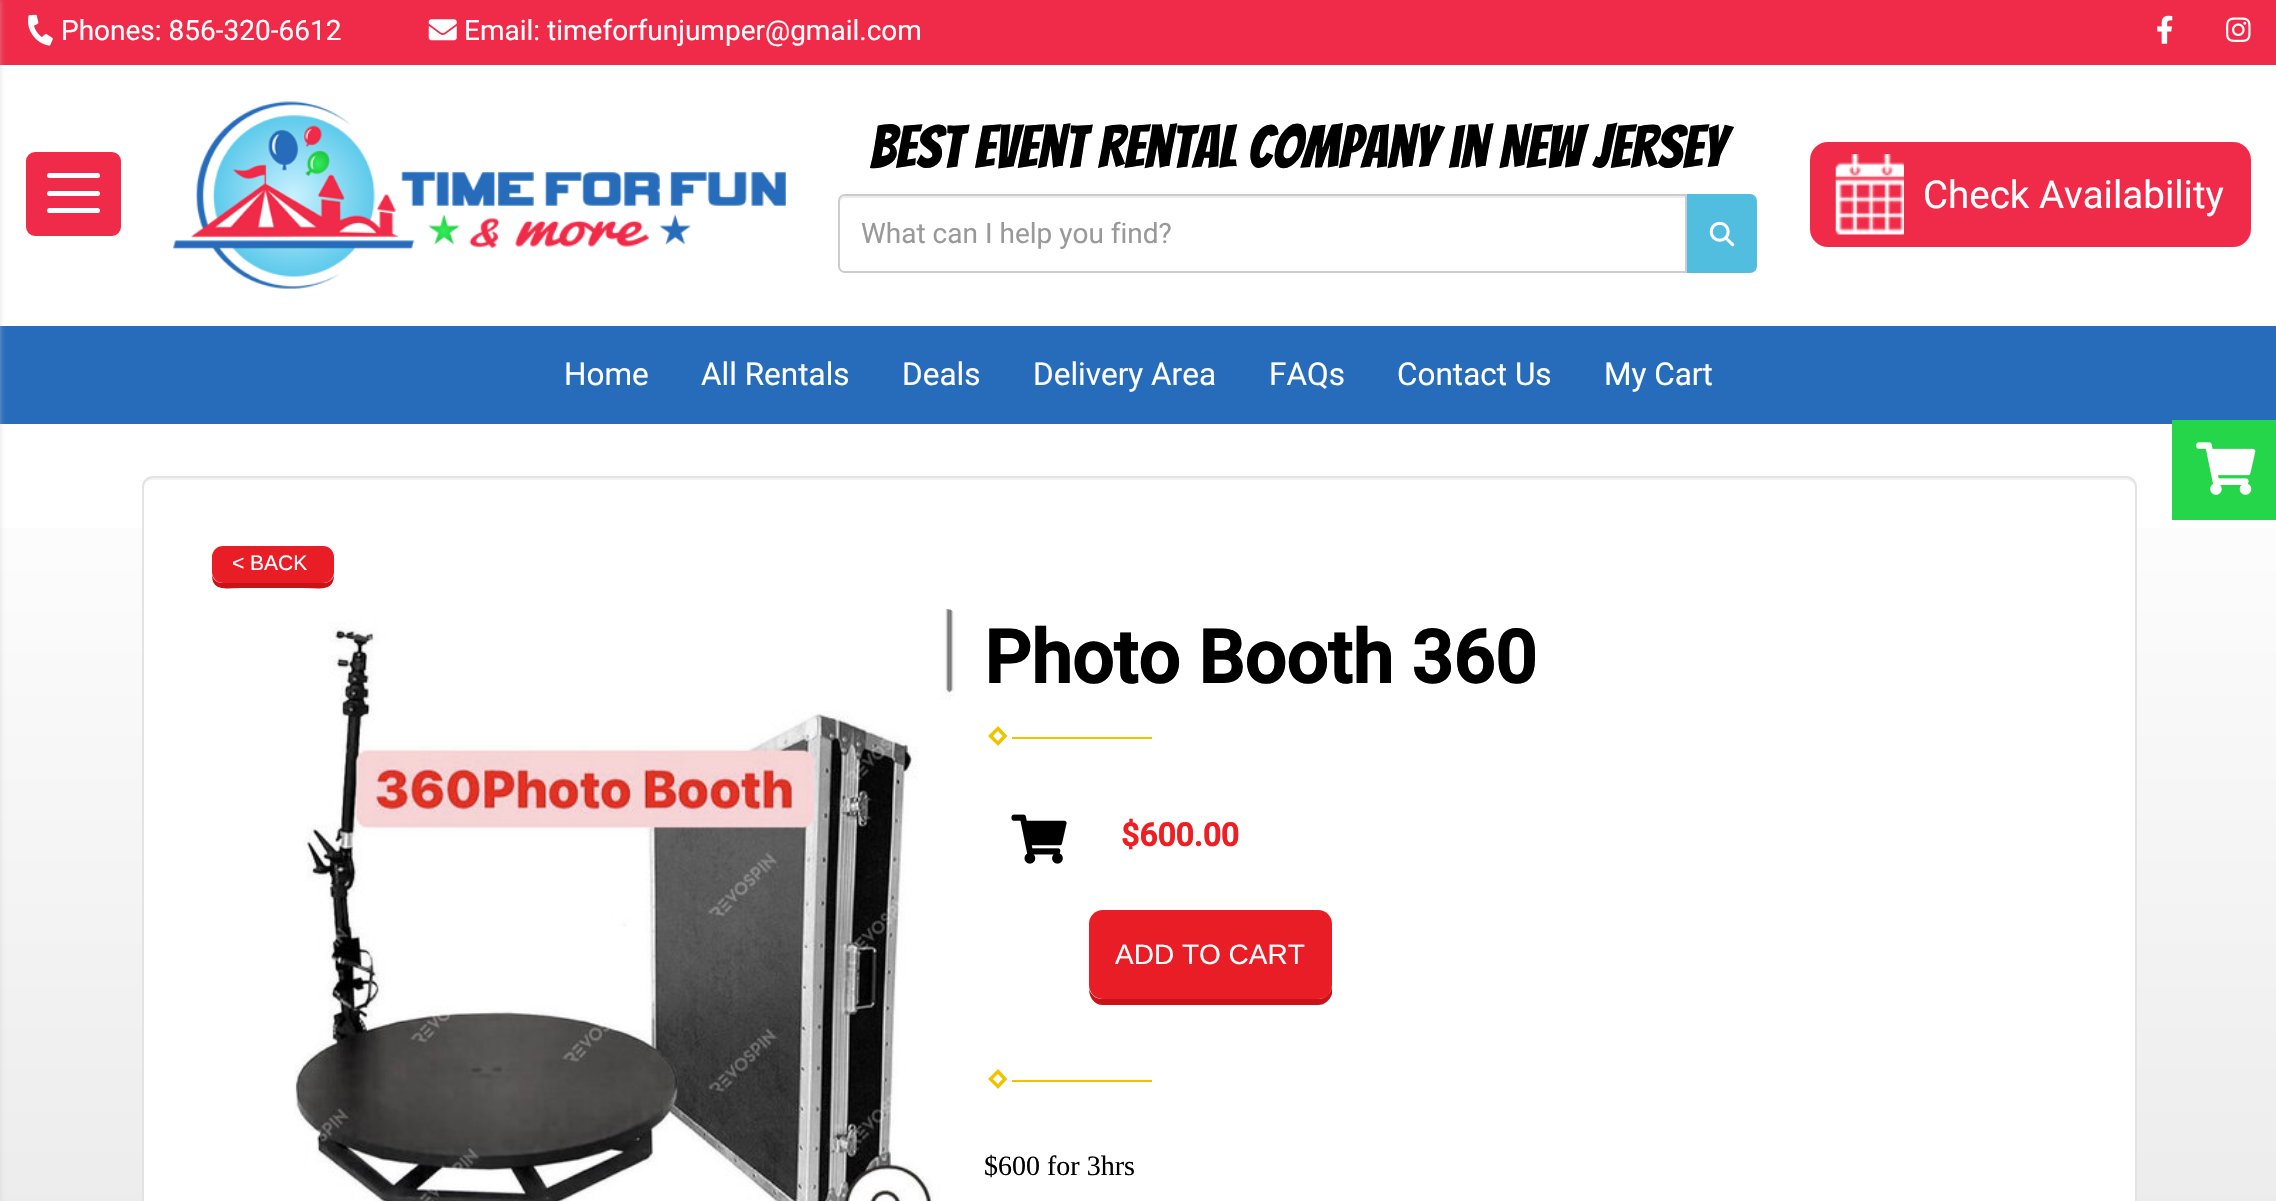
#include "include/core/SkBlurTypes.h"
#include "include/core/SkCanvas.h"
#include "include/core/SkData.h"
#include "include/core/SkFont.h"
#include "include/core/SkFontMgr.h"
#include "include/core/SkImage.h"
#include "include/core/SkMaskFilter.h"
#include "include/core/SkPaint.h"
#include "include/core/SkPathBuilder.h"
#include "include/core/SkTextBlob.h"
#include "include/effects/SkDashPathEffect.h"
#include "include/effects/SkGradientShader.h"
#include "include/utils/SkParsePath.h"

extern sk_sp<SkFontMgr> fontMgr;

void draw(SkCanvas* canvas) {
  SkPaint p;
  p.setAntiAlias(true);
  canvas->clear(SK_ColorWHITE);
  p.setColor(SkColorSetRGB(240, 43, 73));
  canvas->drawRect(SkRect::MakeLTRB(0, 0, 2276, 65), p);
  p.setColor(SkColorSetRGB(39, 108, 186));
  canvas->drawRect(SkRect::MakeLTRB(0, 326, 2276, 424), p);
  {
    const SkColor colors[] = {SkColorSetRGB(231, 231, 231), SK_ColorWHITE};
    const float stops[] = {0.2f, 1};
    const SkPoint ends[] = {{1138, 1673}, {1138, 424}};
    p.setShader(SkGradientShader::MakeLinear(ends, colors, stops, 2, SkTileMode::kClamp));
    p.setAlpha(255);
  }
  canvas->drawRect(SkRect::MakeLTRB(0, 528, 2276, 1201), p);
  p.setShader(nullptr);
  p.setColor(SkColorSetRGB(199, 199, 199));
  p.setMaskFilter(SkMaskFilter::MakeBlur(kNormal_SkBlurStyle, 3.5f));
  canvas->drawRect(SkRect::MakeLTRB(-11, 0, -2, 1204), p);
  p.setMaskFilter(nullptr);
  canvas->drawImageRect(SkImages::DeferredFromEncodedData(SkData::MakeFromFileName("images/1.png")), SkRect::MakeLTRB(28, 14, 53, 46), SkSamplingOptions());
  canvas->drawImageRect(SkImages::DeferredFromEncodedData(SkData::MakeFromFileName("images/2.png")), SkRect::MakeLTRB(428, 19, 457, 41), SkSamplingOptions());
  canvas->drawImageRect(SkImages::DeferredFromEncodedData(SkData::MakeFromFileName("images/3.png")), SkRect::MakeLTRB(2157, 15, 2173, 44), SkSamplingOptions());
  canvas->drawImageRect(SkImages::DeferredFromEncodedData(SkData::MakeFromFileName("images/4.png")), SkRect::MakeLTRB(2226, 17, 2251, 42), SkSamplingOptions());
  p.setColor(SkColorSetRGB(240, 43, 73));
  canvas->drawRoundRect(SkRect::MakeLTRB(28, 154, 119, 234), 7, 7, p);
  p.setStyle(SkPaint::kStroke_Style);
  p.setStrokeWidth(4);
  canvas->drawRoundRect(SkRect::MakeLTRB(28, 154, 119, 234), 7, 7, p);
  p.setStyle(SkPaint::kFill_Style);
  p.setColor(SK_ColorWHITE);
  canvas->drawRoundRect(SkRect::MakeLTRB(47, 173, 100, 178), 2.5f, 2.5f, p);
  canvas->drawRoundRect(SkRect::MakeLTRB(47, 191, 100, 196), 2.5f, 2.5f, p);
  canvas->drawRoundRect(SkRect::MakeLTRB(47, 208, 100, 213), 2.5f, 2.5f, p);
  canvas->drawImageRect(SkImages::DeferredFromEncodedData(SkData::MakeFromFileName("images/5.png")), SkRect::MakeLTRB(173, 101, 786, 289), SkSamplingOptions());
  p.setColor(SkColorSetRGB(236, 236, 236));
  canvas->drawPath(SkPathBuilder().moveTo(845, 198).lineTo(1685, 198).lineTo(1685, 196).lineTo(845, 196).cubicTo(841, 196, 840, 200, 840, 203).cubicTo(840, 200, 842, 198, 845, 198).close().detach(), p);
  p.setStyle(SkPaint::kStroke_Style);
  p.setStrokeWidth(2);
  p.setColor(SkColorSetRGB(204, 204, 204));
  canvas->drawPath(SkPathBuilder().moveTo(845, 195).lineTo(1686, 195).lineTo(1686, 272).lineTo(845, 272).cubicTo(841.5f, 272, 839, 269.5f, 839, 266).lineTo(839, 201).cubicTo(839, 197.5f, 841.5f, 195, 845, 195).close().detach(), p);
  p.setStyle(SkPaint::kFill_Style);
  p.setColor(SkColorSetRGB(81, 190, 223));
  canvas->drawPath(SkPathBuilder().moveTo(1688, 195).lineTo(1750, 195).cubicTo(1753.5f, 195, 1756, 197.5f, 1756, 201).lineTo(1756, 266).cubicTo(1756, 269.5f, 1753.5f, 272, 1750, 272).lineTo(1688, 272).close().detach(), p);
  p.setStyle(SkPaint::kStroke_Style);
  canvas->drawPath(SkPathBuilder().moveTo(1688, 195).lineTo(1750, 195).cubicTo(1753.5f, 195, 1756, 197.5f, 1756, 201).lineTo(1756, 266).cubicTo(1756, 269.5f, 1753.5f, 272, 1750, 272).lineTo(1688, 272).close().detach(), p);
  canvas->drawImageRect(SkImages::DeferredFromEncodedData(SkData::MakeFromFileName("images/6.png")), SkRect::MakeLTRB(1709, 221, 1735, 247), SkSamplingOptions());
  p.setStyle(SkPaint::kFill_Style);
  p.setColor(SkColorSetRGB(240, 43, 73));
  canvas->drawRoundRect(SkRect::MakeLTRB(1810, 142, 2251, 247), 18, 18, p);
  canvas->drawImageRect(SkImages::DeferredFromEncodedData(SkData::MakeFromFileName("images/7.png")), SkRect::MakeLTRB(1835, 154, 1904, 235), SkSamplingOptions());
  p.setColor(SK_ColorWHITE);
  canvas->drawRoundRect(SkRect::MakeLTRB(142, 476, 2137, 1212), 11, 11, p);
  p.setColor(SkColorSetRGB(242, 242, 242));
  canvas->drawPath(SkPathBuilder().moveTo(152, 480).lineTo(2126, 480).cubicTo(2131, 480, 2135, 483, 2135, 488).cubicTo(2135, 483, 2132, 478, 2126, 478).lineTo(153, 478).cubicTo(147, 478, 144, 483, 144, 488).cubicTo(144, 483, 147, 480, 152, 480).close().detach(), p);
  p.setStyle(SkPaint::kStroke_Style);
  p.setColor(SkColorSetRGB(227, 227, 227));
  canvas->drawRoundRect(SkRect::MakeLTRB(143, 477, 2136, 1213), 10, 10, p);
  p.setStyle(SkPaint::kFill_Style);
  p.setColor(SkColorSetRGB(201, 19, 25));
  canvas->drawPath(SkPathBuilder().moveTo(212, 575).cubicTo(212, 592, 227, 588, 240, 588).lineTo(306, 588).cubicTo(319, 588, 334, 592, 334, 575).cubicTo(333, 579, 329, 583, 324, 583).lineTo(222, 583).cubicTo(217, 583, 213, 579, 212, 575).close().detach(), p);
  p.setColor(SkColorSetRGB(233, 29, 37));
  canvas->drawRoundRect(SkRect::MakeLTRB(212, 546, 334, 583), 11, 11, p);
  canvas->drawImageRect(SkImages::DeferredFromEncodedData(SkData::MakeFromFileName("images/8.png")), SkRect::MakeLTRB(294, 609, 955, 1201), SkSamplingOptions());
  p.setStyle(SkPaint::kStroke_Style);
  p.setStrokeWidth(3.5f);
  p.setColor(SkColorSetRGB(238, 196, 0));
  canvas->drawPath(SkPathBuilder().moveTo(998, 728.5f).lineTo(1005, 736).lineTo(998, 743.5f).lineTo(990.5f, 736).close().detach(), p);
  p.setStyle(SkPaint::kFill_Style);
  canvas->drawRect(SkRect::MakeLTRB(1012, 737, 1152, 739), p);
  canvas->drawImageRect(SkImages::DeferredFromEncodedData(SkData::MakeFromFileName("images/9.png")), SkRect::MakeLTRB(1011, 814, 1067, 864), SkSamplingOptions());
  p.setColor(SkColorSetRGB(201, 19, 25));
  canvas->drawPath(SkPathBuilder().moveTo(1089, 989).cubicTo(1089, 997, 1094, 1005, 1103, 1005).lineTo(1318, 1005).cubicTo(1325, 1005, 1330, 1000, 1332, 994).lineTo(1332, 926).lineTo(1332, 985).cubicTo(1332, 993, 1325, 999, 1318, 999).lineTo(1102, 999).cubicTo(1096, 999, 1091, 995, 1089, 989).close().detach(), p);
  p.setColor(SkColorSetRGB(233, 29, 37));
  canvas->drawRoundRect(SkRect::MakeLTRB(1089, 910, 1332, 999), 14, 14, p);
  p.setStyle(SkPaint::kStroke_Style);
  p.setColor(SkColorSetRGB(238, 196, 0));
  canvas->drawPath(SkPathBuilder().moveTo(998, 1071.5f).lineTo(1005, 1079).lineTo(998, 1086.5f).lineTo(990.5f, 1079).close().detach(), p);
  p.setStyle(SkPaint::kFill_Style);
  canvas->drawRect(SkRect::MakeLTRB(1012, 1080, 1152, 1082), p);
  p.setColor(SkColorSetRGB(38, 214, 74));
  canvas->drawRect(SkRect::MakeLTRB(2172, 420, 2276, 520), p);
  canvas->drawImageRect(SkImages::DeferredFromEncodedData(SkData::MakeFromFileName("images/10.png")), SkRect::MakeLTRB(2196, 442, 2256, 495), SkSamplingOptions());
  SkFont font1(fontMgr->matchFamilyStyle("Roboto", SkFontStyle::Normal()), 28);
  font1.setSubpixel(true);
  p.setColor(SK_ColorWHITE);
  canvas->drawString("Phones: 856-320-6612", 61, 40, font1, p);
  canvas->drawString("Email: timeforfunjumper@gmail.com", 464, 40, font1, p);
  SkFont font2(fontMgr->matchFamilyStyle("Bangers", SkFontStyle::Normal()), 59.5f);
  font2.setSubpixel(true);
  p.setColor(SK_ColorBLACK);
  canvas->drawString("Best Event Rental Company in New Jersey", 870, 168, font2, p);
  p.setColor(SkColorSetRGB(153, 153, 153));
  canvas->drawString("What can I help you find?", 861, 243, font1, p);
  SkFont font3(fontMgr->matchFamilyStyle("Roboto", SkFontStyle::Normal()), 38.5f);
  font3.setSubpixel(true);
  p.setColor(SK_ColorWHITE);
  canvas->drawString("Check Availability", 1923, 208, font3, p);
  SkFont font4(fontMgr->matchFamilyStyle("Roboto", SkFontStyle::Normal()), 31.5f);
  font4.setSubpixel(true);
  canvas->drawString("Home", 564, 385, font4, p);
  canvas->drawString("All Rentals", 701, 385, font4, p);
  canvas->drawString("Deals", 902, 385, font4, p);
  canvas->drawString("Delivery Area", 1033, 385, font4, p);
  canvas->drawString("FAQs", 1269, 385, font4, p);
  canvas->drawString("Contact Us", 1397, 385, font4, p);
  canvas->drawString("My Cart", 1604, 385, font4, p);
  SkFont font5(fontMgr->matchFamilyStyle("Liberation Sans", SkFontStyle::Normal()), 21);
  font5.setSubpixel(true);
  canvas->drawString("< BACK", 232, 570, font5, p);
  SkFont font6(fontMgr->matchFamilyStyle("Roboto", SkFontStyle::Bold()), 73.5f);
  font6.setSubpixel(true);
  p.setColor(SK_ColorBLACK);
  canvas->drawString("Photo Booth 360", 984, 683, font6, p);
  SkFont font7(fontMgr->matchFamilyStyle("Roboto", SkFontStyle::Bold()), 32);
  font7.setSubpixel(true);
  p.setColor(SkColorSetRGB(238, 31, 36));
  canvas->drawString("$600.00", 1121, 846, font7, p);
  SkFont font8(fontMgr->matchFamilyStyle("Liberation Sans", SkFontStyle::Normal()), 28);
  font8.setSubpixel(true);
  p.setColor(SK_ColorWHITE);
  canvas->drawString("ADD TO CART", 1115, 964, font8, p);
  SkFont font9(fontMgr->matchFamilyStyle("Liberation Serif", SkFontStyle::Normal()), 28);
  font9.setSubpixel(true);
  p.setColor(SK_ColorBLACK);
  canvas->drawString("$600 for 3hrs", 984, 1175, font9, p);
}
